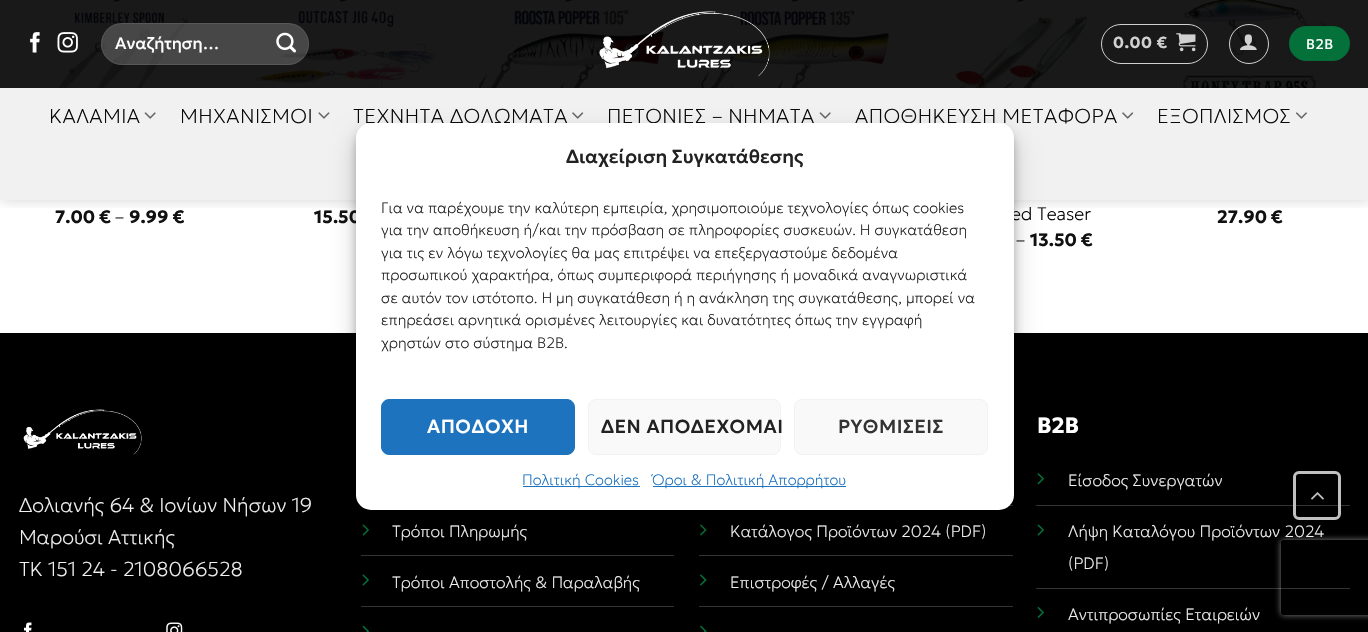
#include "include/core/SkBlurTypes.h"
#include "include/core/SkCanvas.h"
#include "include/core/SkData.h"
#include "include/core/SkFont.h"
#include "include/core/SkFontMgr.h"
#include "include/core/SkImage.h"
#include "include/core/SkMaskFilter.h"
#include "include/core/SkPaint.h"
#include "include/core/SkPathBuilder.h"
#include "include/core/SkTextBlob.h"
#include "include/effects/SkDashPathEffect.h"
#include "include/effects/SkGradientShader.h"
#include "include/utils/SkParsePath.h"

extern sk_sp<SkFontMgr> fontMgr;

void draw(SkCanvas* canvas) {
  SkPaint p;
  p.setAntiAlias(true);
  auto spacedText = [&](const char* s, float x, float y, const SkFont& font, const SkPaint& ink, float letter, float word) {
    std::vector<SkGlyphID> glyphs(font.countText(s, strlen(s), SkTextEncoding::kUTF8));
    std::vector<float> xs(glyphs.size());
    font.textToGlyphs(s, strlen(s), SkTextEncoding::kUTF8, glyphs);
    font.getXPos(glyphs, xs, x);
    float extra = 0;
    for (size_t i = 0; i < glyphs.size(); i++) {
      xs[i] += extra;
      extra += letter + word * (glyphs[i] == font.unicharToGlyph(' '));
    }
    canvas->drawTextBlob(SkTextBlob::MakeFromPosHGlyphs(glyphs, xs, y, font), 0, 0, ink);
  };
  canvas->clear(SK_ColorWHITE);
  canvas->drawImageRect(SkImages::DeferredFromEncodedData(SkData::MakeFromFileName("images/11.png")), SkRect::MakeLTRB(477, 0, 671, 88), SkSamplingOptions());
  canvas->drawImageRect(SkImages::DeferredFromEncodedData(SkData::MakeFromFileName("images/12.png")), SkRect::MakeLTRB(700, 0, 897, 88), SkSamplingOptions());
  canvas->drawImageRect(SkImages::DeferredFromEncodedData(SkData::MakeFromFileName("images/13.png")), SkRect::MakeLTRB(49, 0, 189, 88), SkSamplingOptions());
  canvas->drawImageRect(SkImages::DeferredFromEncodedData(SkData::MakeFromFileName("images/14.png")), SkRect::MakeLTRB(256, 0, 435, 88), SkSamplingOptions());
  canvas->drawImageRect(SkImages::DeferredFromEncodedData(SkData::MakeFromFileName("images/15.png")), SkRect::MakeLTRB(951, 0, 1087, 88), SkSamplingOptions());
  canvas->drawImageRect(SkImages::DeferredFromEncodedData(SkData::MakeFromFileName("images/16.png")), SkRect::MakeLTRB(1179, 0, 1327, 88), SkSamplingOptions());
  canvas->save();
  canvas->clipRect(SkRect::MakeLTRB(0, 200, 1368, 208));
  p.setColor(SkColorSetARGB(38, 0, 0, 0));
  p.setMaskFilter(SkMaskFilter::MakeBlur(kNormal_SkBlurStyle, 6));
  canvas->drawRect(SkRect::MakeLTRB(1, 1, 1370, 201), p);
  p.setMaskFilter(nullptr);
  canvas->restore();
  p.setColor(SkColorSetARGB(230, 0, 0, 0));
  canvas->drawRect(SkRect::MakeLTRB(0, 0, 1368, 88), p);
  canvas->drawImageRect(SkImages::DeferredFromEncodedData(SkData::MakeFromFileName("images/1.png")), SkRect::MakeLTRB(30, 32, 40, 53), SkSamplingOptions());
  canvas->drawImageRect(SkImages::DeferredFromEncodedData(SkData::MakeFromFileName("images/2.png")), SkRect::MakeLTRB(57, 32, 78, 53), SkSamplingOptions());
  p.setColor(SkColorSetARGB(51, 255, 255, 255));
  canvas->drawRoundRect(SkRect::MakeLTRB(101, 23, 309, 65), 21, 21, p);
  p.setStyle(SkPaint::kStroke_Style);
  p.setStrokeWidth(1);
  p.setColor(SkColorSetARGB(23, 255, 255, 255));
  canvas->drawRoundRect(SkRect::MakeLTRB(101.5f, 23.5f, 308.5f, 64.5f), 20.5f, 20.5f, p);
  canvas->drawImageRect(SkImages::DeferredFromEncodedData(SkData::MakeFromFileName("images/3.png")), SkRect::MakeLTRB(276, 32, 296, 53), SkSamplingOptions());
  canvas->drawImageRect(SkImages::DeferredFromEncodedData(SkData::MakeFromFileName("images/4.png")), SkRect::MakeLTRB(599, 11, 770, 77), SkSamplingOptions());
  p.setColor(SkColorSetRGB(209, 209, 209));
  canvas->drawRoundRect(SkRect::MakeLTRB(1101.5f, 24.5f, 1207.5f, 63.5f), 19.5f, 19.5f, p);
  canvas->drawImageRect(SkImages::DeferredFromEncodedData(SkData::MakeFromFileName("images/5.png")), SkRect::MakeLTRB(1176, 33, 1196, 52), SkSamplingOptions());
  p.setColor(SkColorSetARGB(204, 255, 255, 255));
  canvas->drawCircle(1249, 44, 19.5f, p);
  canvas->drawImageRect(SkImages::DeferredFromEncodedData(SkData::MakeFromFileName("images/6.png")), SkRect::MakeLTRB(1240, 34, 1257, 50), SkSamplingOptions());
  p.setStyle(SkPaint::kFill_Style);
  p.setColor(SkColorSetRGB(5, 113, 58));
  canvas->drawRoundRect(SkRect::MakeLTRB(1289, 26, 1350, 61), 17.5f, 17.5f, p);
  p.setStyle(SkPaint::kStroke_Style);
  p.setColor(SkColorSetARGB(13, 0, 0, 0));
  canvas->drawRect(SkRect::MakeLTRB(1289.5f, 26.5f, 1349.5f, 60.5f), p);
  p.setStyle(SkPaint::kFill_Style);
  p.setColor(SkColorSetRGB(241, 241, 241));
  canvas->drawRect(SkRect::MakeLTRB(0, 88, 1368, 200), p);
  canvas->drawImageRect(SkImages::DeferredFromEncodedData(SkData::MakeFromFileName("images/7.png")), SkRect::MakeLTRB(144, 112, 156, 119), SkSamplingOptions());
  canvas->drawImageRect(SkImages::DeferredFromEncodedData(SkData::MakeFromFileName("images/8.png")), SkRect::MakeLTRB(318, 112, 330, 119), SkSamplingOptions());
  canvas->drawImageRect(SkImages::DeferredFromEncodedData(SkData::MakeFromFileName("images/9.png")), SkRect::MakeLTRB(572, 112, 584, 119), SkSamplingOptions());
  canvas->drawImageRect(SkImages::DeferredFromEncodedData(SkData::MakeFromFileName("images/7.png")), SkRect::MakeLTRB(819, 112, 831, 119), SkSamplingOptions());
  canvas->drawImageRect(SkImages::DeferredFromEncodedData(SkData::MakeFromFileName("images/9.png")), SkRect::MakeLTRB(1122, 112, 1134, 119), SkSamplingOptions());
  canvas->drawImageRect(SkImages::DeferredFromEncodedData(SkData::MakeFromFileName("images/10.png")), SkRect::MakeLTRB(1295, 112, 1307, 119), SkSamplingOptions());
  p.setColor(SK_ColorBLACK);
  canvas->drawRect(SkRect::MakeLTRB(0, 333, 1368, 632), p);
  canvas->drawImageRect(SkImages::DeferredFromEncodedData(SkData::MakeFromFileName("images/17.png")), SkRect::MakeLTRB(23, 409, 142, 455), SkSamplingOptions());
  canvas->drawImageRect(SkImages::DeferredFromEncodedData(SkData::MakeFromFileName("images/18.png")), SkRect::MakeLTRB(24, 622, 32, 632), SkSamplingOptions());
  canvas->drawImageRect(SkImages::DeferredFromEncodedData(SkData::MakeFromFileName("images/19.png")), SkRect::MakeLTRB(166, 622, 183, 632), SkSamplingOptions());
  p.setColor(SkColorSetRGB(51, 51, 51));
  canvas->drawRect(SkRect::MakeLTRB(361, 555, 674, 556), p);
  canvas->drawImageRect(SkImages::DeferredFromEncodedData(SkData::MakeFromFileName("images/20.png")), SkRect::MakeLTRB(362, 524, 369, 536), SkSamplingOptions());
  canvas->drawRect(SkRect::MakeLTRB(361, 606, 674, 607), p);
  canvas->drawImageRect(SkImages::DeferredFromEncodedData(SkData::MakeFromFileName("images/20.png")), SkRect::MakeLTRB(362, 574, 369, 586), SkSamplingOptions());
  canvas->drawImageRect(SkImages::DeferredFromEncodedData(SkData::MakeFromFileName("images/21.png")), SkRect::MakeLTRB(362, 625, 369, 632), SkSamplingOptions());
  canvas->drawRect(SkRect::MakeLTRB(1009, 505, 1013, 506), p);
  canvas->drawRect(SkRect::MakeLTRB(699, 555, 1013, 556), p);
  canvas->drawImageRect(SkImages::DeferredFromEncodedData(SkData::MakeFromFileName("images/22.png")), SkRect::MakeLTRB(700, 524, 707, 536), SkSamplingOptions());
  canvas->drawRect(SkRect::MakeLTRB(699, 606, 1013, 607), p);
  canvas->drawImageRect(SkImages::DeferredFromEncodedData(SkData::MakeFromFileName("images/22.png")), SkRect::MakeLTRB(700, 574, 707, 586), SkSamplingOptions());
  canvas->drawImageRect(SkImages::DeferredFromEncodedData(SkData::MakeFromFileName("images/23.png")), SkRect::MakeLTRB(700, 625, 707, 632), SkSamplingOptions());
  canvas->drawRect(SkRect::MakeLTRB(1036, 505, 1350, 506), p);
  canvas->drawImageRect(SkImages::DeferredFromEncodedData(SkData::MakeFromFileName("images/24.png")), SkRect::MakeLTRB(1037, 473, 1044, 485), SkSamplingOptions());
  canvas->save();
  canvas->clipPath(SkPathBuilder(SkPathFillType::kEvenOdd).moveTo(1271, 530).lineTo(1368, 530).lineTo(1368, 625).lineTo(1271, 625).close().moveTo(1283.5f, 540).lineTo(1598.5f, 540).cubicTo(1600, 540, 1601, 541, 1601, 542.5f).lineTo(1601, 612.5f).cubicTo(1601, 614, 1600, 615, 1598.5f, 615).lineTo(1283.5f, 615).cubicTo(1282, 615, 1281, 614, 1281, 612.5f).lineTo(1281, 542.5f).cubicTo(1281, 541, 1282, 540, 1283.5f, 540).close().detach(), true);
  p.setColor(SkColorSetRGB(128, 128, 128));
  p.setMaskFilter(SkMaskFilter::MakeBlur(kNormal_SkBlurStyle, 3));
  canvas->drawRoundRect(SkRect::MakeLTRB(1281, 540, 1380, 615), 2.5f, 2.5f, p);
  p.setMaskFilter(nullptr);
  canvas->restore();
  p.setColor(SkColorSetARGB(51, 255, 255, 255));
  canvas->drawRect(SkRect::MakeLTRB(1036, 588, 1350, 589), p);
  canvas->drawImageRect(SkImages::DeferredFromEncodedData(SkData::MakeFromFileName("images/20.png")), SkRect::MakeLTRB(1037, 524, 1044, 536), SkSamplingOptions());
  canvas->drawImageRect(SkImages::DeferredFromEncodedData(SkData::MakeFromFileName("images/25.png")), SkRect::MakeLTRB(1037, 607, 1044, 618), SkSamplingOptions());
  p.setStyle(SkPaint::kStroke_Style);
  p.setStrokeWidth(3);
  p.setColor(SkColorSetRGB(192, 192, 192));
  canvas->drawRoundRect(SkRect::MakeLTRB(1294.5f, 472.5f, 1339.5f, 518.5f), 4.5f, 4.5f, p);
  canvas->drawImageRect(SkImages::DeferredFromEncodedData(SkData::MakeFromFileName("images/26.png")), SkRect::MakeLTRB(1311, 492, 1324, 500), SkSamplingOptions());
  p.setStyle(SkPaint::kFill_Style);
  p.setColor(SkColorSetARGB(59, 0, 0, 0));
  p.setMaskFilter(SkMaskFilter::MakeBlur(kNormal_SkBlurStyle, 4));
  canvas->drawRoundRect(SkRect::MakeLTRB(356, 130, 1014, 518), 15, 15, p);
  p.setMaskFilter(nullptr);
  p.setColor(SkColorSetARGB(48, 0, 0, 0));
  p.setMaskFilter(SkMaskFilter::MakeBlur(kNormal_SkBlurStyle, 12.5f));
  canvas->drawRoundRect(SkRect::MakeLTRB(356, 135, 1014, 523), 15, 15, p);
  p.setMaskFilter(nullptr);
  SkFont font1(fontMgr->matchFamilyStyle("Geologica", SkFontStyle::Normal()), 16.5f);
  font1.setSubpixel(true);
  p.setColor(SK_ColorWHITE);
  canvas->drawString("Αναζήτηση…", 115, 49, font1, p);
  SkFont font2(fontMgr->matchFamilyStyle("Geologica", SkFontStyle::Bold()), 16);
  font2.setSubpixel(true);
  p.setColor(SkColorSetRGB(209, 209, 209));
  spacedText("0.00 €", 1113, 48, font2, p, 0.5f, 0);
  SkFont font3(fontMgr->matchFamilyStyle("Geologica", SkFontStyle::Normal()), 14);
  font3.setSubpixel(true);
  p.setColor(SK_ColorWHITE);
  spacedText("B2B", 1306, 49, font3, p, 0.5f, 0);
  SkFont font4(fontMgr->matchFamilyStyle("Geologica", SkFontStyle(100, SkFontStyle::kNormal_Width, SkFontStyle::kUpright_Slant)), 20);
  font4.setSubpixel(true);
  p.setColor(SkColorSetRGB(10, 10, 10));
  spacedText("ΚΑΛΑΜΙΑ", 49, 123, font4, p, 0.4f, 0);
  spacedText("ΜΗΧΑΝΙΣΜΟΙ", 180, 123, font4, p, 0.4f, 0);
  spacedText("ΤΕΧΝΗΤΑ ΔΟΛΩΜΑΤΑ", 353, 123, font4, p, 0.4f, 0);
  spacedText("ΠΕΤΟΝΙΕΣ – ΝΗΜΑΤΑ", 607, 123, font4, p, 0.4f, 0);
  spacedText("ΑΠΟΘΗΚΕΥΣΗ ΜΕΤΑΦΟΡΑ", 855, 123, font4, p, 0.4f, 0);
  spacedText("ΕΞΟΠΛΙΣΜΟΣ", 1157, 123, font4, p, 0.4f, 0);
  SkFont font5(fontMgr->matchFamilyStyle("Geologica", SkFontStyle::Bold()), 18);
  font5.setSubpixel(true);
  p.setColor(SkColorSetRGB(17, 17, 17));
  canvas->drawString("7.00 €", 55, 223, font5, p);
  SkFont font6(fontMgr->matchFamilyStyle("Geologica", SkFontStyle(100, SkFontStyle::kNormal_Width, SkFontStyle::kUpright_Slant)), 18);
  font6.setSubpixel(true);
  p.setColor(SK_ColorBLACK);
  canvas->drawString("–", 115, 223, font6, p);
  p.setColor(SkColorSetRGB(17, 17, 17));
  canvas->drawString("9.99 €", 129, 223, font5, p);
  canvas->drawString("15.50", 314, 223, font5, p);
  p.setColor(SK_ColorBLACK);
  canvas->drawString("ed Teaser", 1011, 220, font6, p);
  canvas->drawString("–", 1016, 246, font6, p);
  p.setColor(SkColorSetRGB(17, 17, 17));
  canvas->drawString("13.50 €", 1030, 246, font5, p);
  canvas->drawString("27.90 €", 1217, 223, font5, p);
  p.setColor(SkColorSetRGB(241, 241, 241));
  canvas->drawString("Δολιανής 64 & Ιονίων Νήσων 19", 19, 512, font4, p);
  canvas->drawString("Μαρούσι Αττικής", 19, 544, font4, p);
  canvas->drawString("TK 151 24 - 2108066528", 19, 576, font4, p);
  SkFont font7(fontMgr->matchFamilyStyle("Geologica", SkFontStyle(100, SkFontStyle::kNormal_Width, SkFontStyle::kUpright_Slant)), 16.25f);
  font7.setSubpixel(true);
  canvas->drawString("Τρόποι Πληρωμής", 392, 537, font7, p);
  canvas->drawString("Τρόποι Αποστολής & Παραλαβής", 392, 588, font7, p);
  canvas->drawString("Κατάλογος Προϊόντων 2024 (PDF)", 730, 537, font7, p);
  canvas->drawString("Επιστροφές / Αλλαγές", 730, 588, font7, p);
  SkFont font8(fontMgr->matchFamilyStyle("Geologica", SkFontStyle::Bold()), 22);
  font8.setSubpixel(true);
  p.setColor(SK_ColorWHITE);
  canvas->drawString("Β2Β", 1037, 433, font8, p);
  p.setColor(SkColorSetRGB(241, 241, 241));
  canvas->drawString("Είσοδος Συνεργατών", 1068, 486, font7, p);
  canvas->drawString("Λήψη Καταλόγου Προϊόντων 2024", 1068, 537, font7, p);
  canvas->drawString("(PDF)", 1068, 569, font7, p);
  canvas->drawString("Αντιπροσωπίες Εταιρειών", 1068, 620, font7, p);
  p.setColor(SK_ColorWHITE);
  canvas->drawRoundRect(SkRect::MakeLTRB(356, 123, 1014, 510), 15, 15, p);
  SkFont font9(fontMgr->matchFamilyStyle("Geologica", SkFontStyle(500, SkFontStyle::kNormal_Width, SkFontStyle::kUpright_Slant)), 18.75f);
  font9.setSubpixel(true);
  p.setColor(SkColorSetRGB(34, 34, 34));
  canvas->drawString("Διαχείριση Συγκατάθεσης", 566, 163, font9, p);
  SkFont font10(fontMgr->matchFamilyStyle("Geologica", SkFontStyle(100, SkFontStyle::kNormal_Width, SkFontStyle::kUpright_Slant)), 15);
  font10.setSubpixel(true);
  canvas->drawString("Για να παρέχουμε την καλύτερη εμπειρία, χρησιμοποιούμε τεχνολογίες όπως cookies", 381, 213, font10, p);
  canvas->drawString("για την αποθήκευση ή/και την πρόσβαση σε πληροφορίες συσκευών. Η συγκατάθεση", 381, 235, font10, p);
  canvas->drawString("για τις εν λόγω τεχνολογίες θα μας επιτρέψει να επεξεργαστούμε δεδομένα", 381, 258, font10, p);
  canvas->drawString("προσωπικού χαρακτήρα, όπως συμπεριφορά περιήγησης ή μοναδικά αναγνωριστικά", 381, 280, font10, p);
  canvas->drawString("σε αυτόν τον ιστότοπο. Η μη συγκατάθεση ή η ανάκληση της συγκατάθεσης, μπορεί να", 381, 303, font10, p);
  canvas->drawString("επηρεάσει αρνητικά ορισμένες λειτουργίες και δυνατότητες όπως την εγγραφή", 381, 325, font10, p);
  canvas->drawString("χρηστών στο σύστημα B2B.", 381, 348, font10, p);
  p.setColor(SkColorSetRGB(30, 115, 190));
  canvas->drawRoundRect(SkRect::MakeLTRB(381.5f, 399.5f, 574.5f, 454.5f), 7.5f, 7.5f, p);
  p.setStyle(SkPaint::kStroke_Style);
  p.setStrokeWidth(1);
  canvas->drawRoundRect(SkRect::MakeLTRB(381.5f, 399.5f, 574.5f, 454.5f), 7.5f, 7.5f, p);
  p.setStyle(SkPaint::kFill_Style);
  p.setColor(SK_ColorWHITE);
  spacedText("ΑΠΟΔΟΧΗ", 427, 433, font9, p, 0.5f, 0);
  p.setColor(SkColorSetRGB(249, 249, 249));
  canvas->drawRoundRect(SkRect::MakeLTRB(588.5f, 399.5f, 780.5f, 454.5f), 7.5f, 7.5f, p);
  p.setStyle(SkPaint::kStroke_Style);
  p.setColor(SkColorSetRGB(242, 242, 242));
  canvas->drawRoundRect(SkRect::MakeLTRB(588.5f, 399.5f, 780.5f, 454.5f), 7.5f, 7.5f, p);
  p.setStyle(SkPaint::kFill_Style);
  p.setColor(SkColorSetRGB(34, 34, 34));
  spacedText("ΔΕΝ ΑΠΟΔΕΧΟΜΑΙ", 601, 433, font9, p, 0.5f, 0);
  p.setColor(SkColorSetRGB(249, 249, 249));
  canvas->drawRoundRect(SkRect::MakeLTRB(794.5f, 399.5f, 987.5f, 454.5f), 7.5f, 7.5f, p);
  p.setStyle(SkPaint::kStroke_Style);
  p.setColor(SkColorSetRGB(242, 242, 242));
  canvas->drawRoundRect(SkRect::MakeLTRB(794.5f, 399.5f, 987.5f, 454.5f), 7.5f, 7.5f, p);
  p.setStyle(SkPaint::kFill_Style);
  p.setColor(SkColorSetRGB(51, 51, 51));
  spacedText("ΡΥΘΜΙΣΕΙΣ", 838, 433, font9, p, 0.5f, 0);
  p.setColor(SkColorSetRGB(30, 115, 190));
  canvas->drawRect(SkRect::MakeLTRB(523, 486, 640, 487), p);
  canvas->drawString("Πολιτική Cookies", 522, 485, font10, p);
  canvas->drawRect(SkRect::MakeLTRB(653, 486, 846, 487), p);
  canvas->drawString("Όροι & Πολιτική Απορρήτου", 652, 485, font10, p);
}
